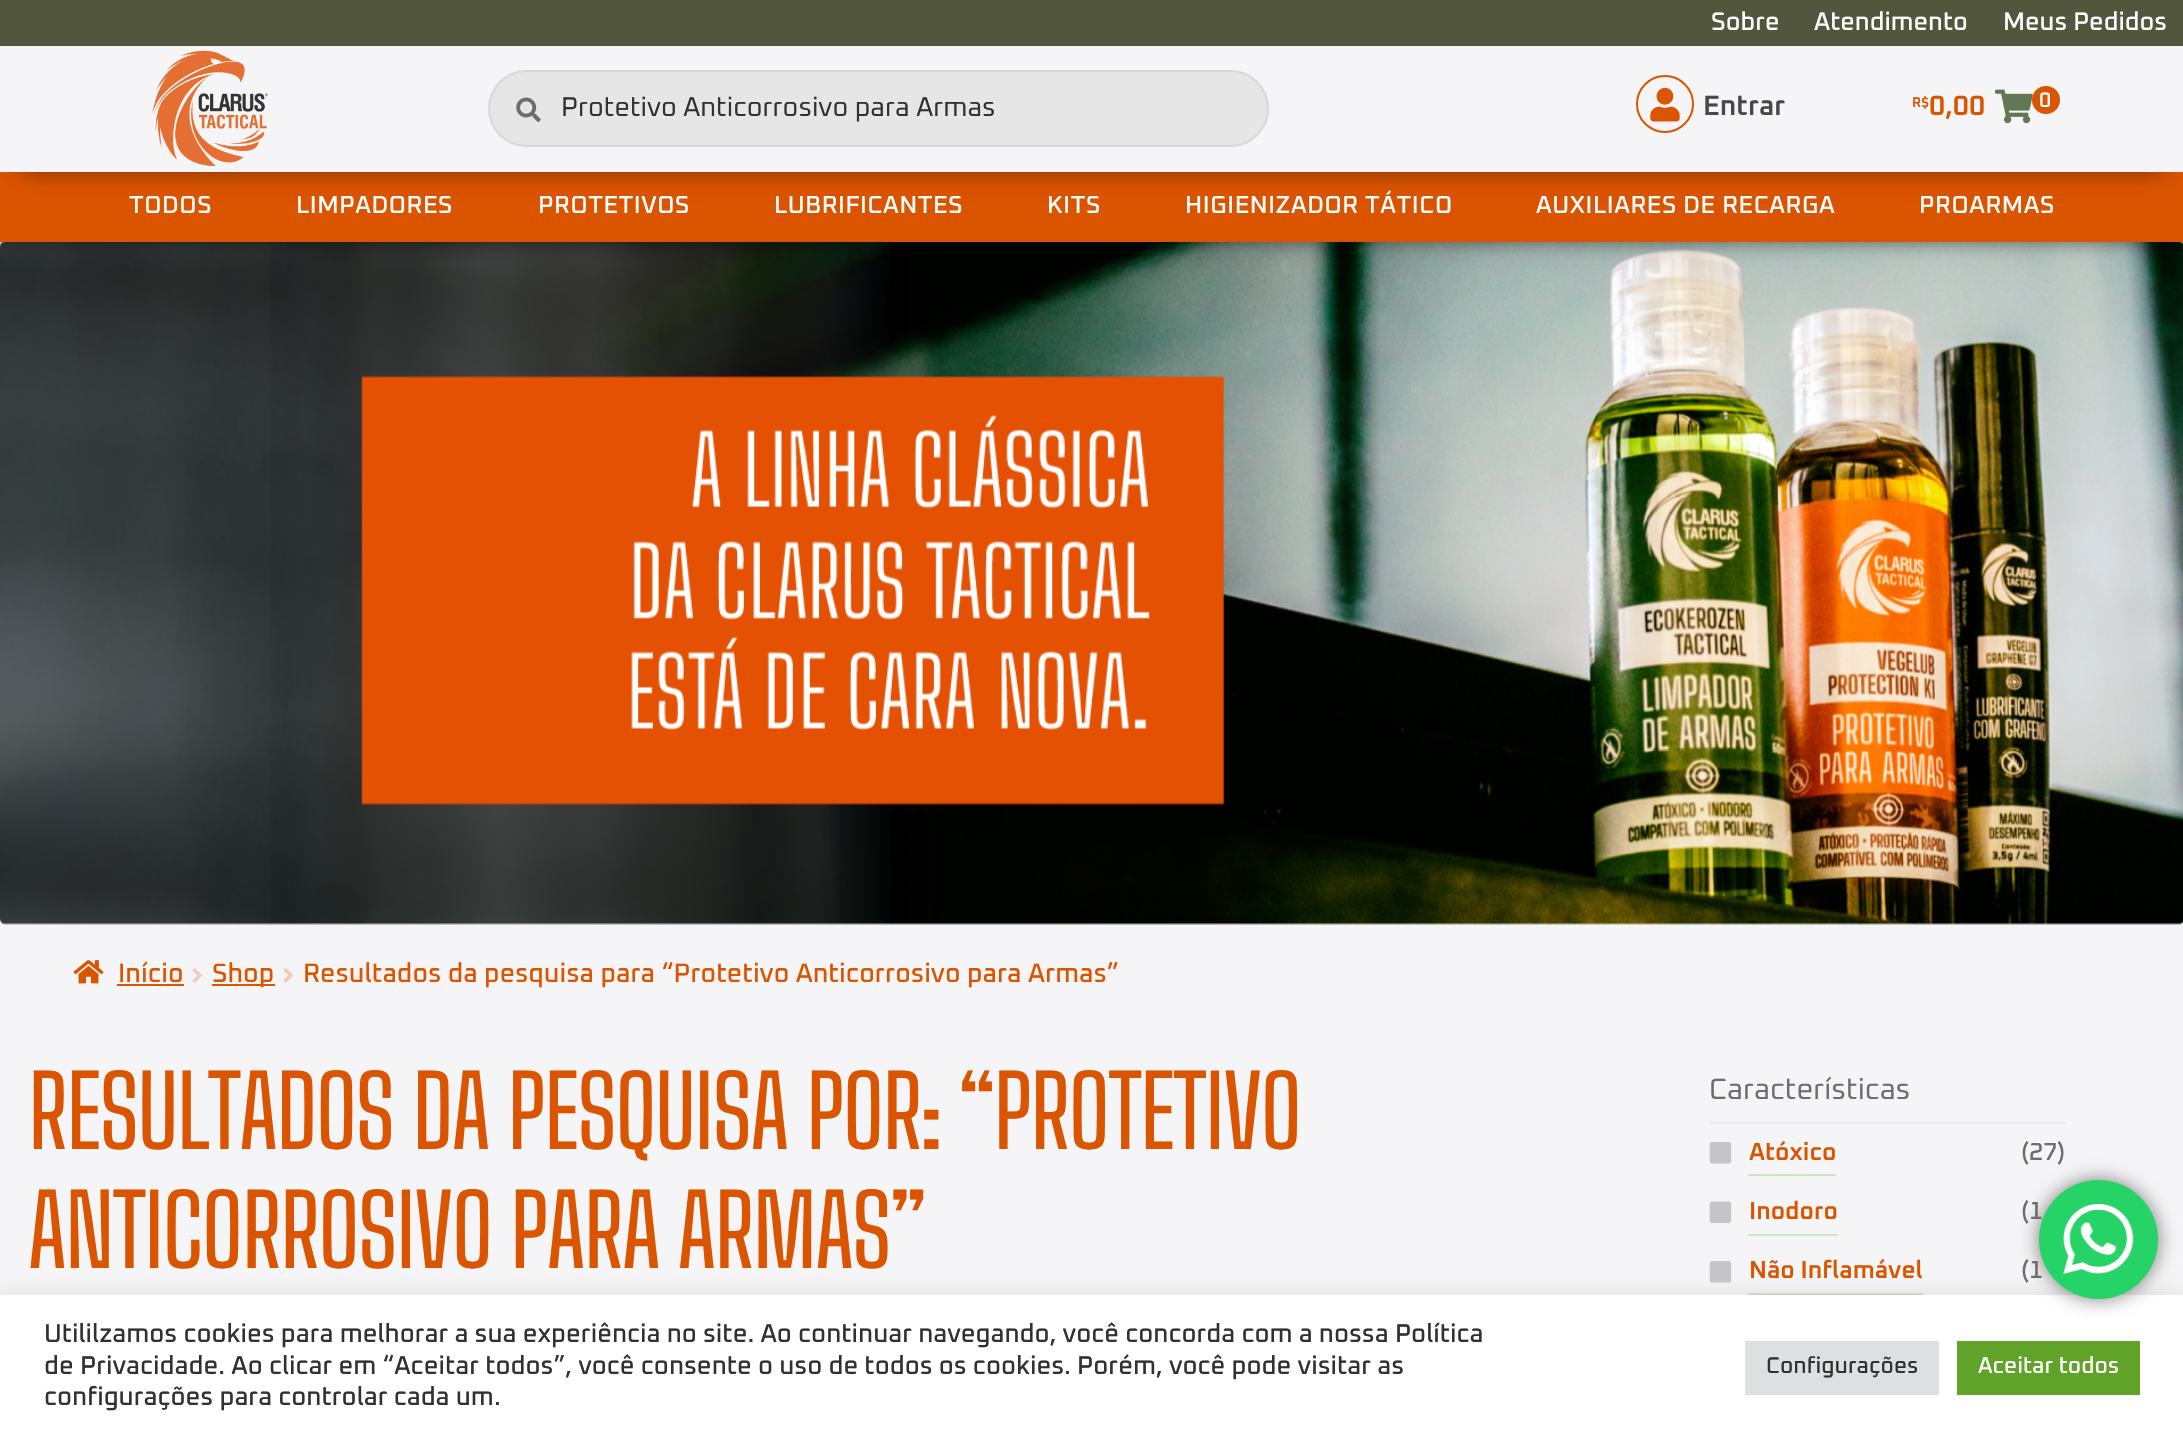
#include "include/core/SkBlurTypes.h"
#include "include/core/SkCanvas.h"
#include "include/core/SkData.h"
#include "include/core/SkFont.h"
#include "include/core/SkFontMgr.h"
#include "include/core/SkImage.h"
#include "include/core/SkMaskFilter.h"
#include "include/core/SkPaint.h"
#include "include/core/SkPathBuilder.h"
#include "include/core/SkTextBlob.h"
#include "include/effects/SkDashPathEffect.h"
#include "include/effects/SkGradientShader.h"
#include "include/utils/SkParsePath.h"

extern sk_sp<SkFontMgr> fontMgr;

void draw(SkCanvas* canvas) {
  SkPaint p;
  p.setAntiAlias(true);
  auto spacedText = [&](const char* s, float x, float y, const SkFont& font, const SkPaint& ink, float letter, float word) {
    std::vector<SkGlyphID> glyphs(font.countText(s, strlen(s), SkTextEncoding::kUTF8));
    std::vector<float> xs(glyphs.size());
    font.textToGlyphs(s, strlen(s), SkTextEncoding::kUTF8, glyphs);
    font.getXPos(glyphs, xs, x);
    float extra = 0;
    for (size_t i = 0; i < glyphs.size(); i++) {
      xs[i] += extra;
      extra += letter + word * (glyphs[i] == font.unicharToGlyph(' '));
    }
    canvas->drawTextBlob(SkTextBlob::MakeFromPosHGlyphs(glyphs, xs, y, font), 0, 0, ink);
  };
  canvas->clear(SK_ColorWHITE);
  canvas->drawImageRect(SkImages::DeferredFromEncodedData(SkData::MakeFromFileName("images/1.png")), SkRect::MakeLTRB(0, 242, 2183, 924), SkSamplingOptions());
  p.setColor(SkColorSetRGB(81, 86, 61));
  canvas->drawRect(SkRect::MakeLTRB(0, 0, 2183, 46), p);
  p.setColor(SkColorSetRGB(245, 245, 247));
  canvas->drawRect(SkRect::MakeLTRB(0, 924, 2183, 1295), p);
  canvas->drawImageRect(SkImages::DeferredFromEncodedData(SkData::MakeFromFileName("images/6.png")), SkRect::MakeLTRB(0, 242, 2183, 925), SkSamplingOptions());
  p.setColor(SkColorSetARGB(128, 0, 0, 0));
  p.setMaskFilter(SkMaskFilter::MakeBlur(kNormal_SkBlurStyle, 9));
  canvas->drawRect(SkRect::MakeLTRB(0, 172, 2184, 242), p);
  p.setMaskFilter(nullptr);
  p.setColor(SkColorSetRGB(219, 84, 0));
  canvas->drawRect(SkRect::MakeLTRB(0, 172, 2183, 242), p);
  p.setColor(SkColorSetARGB(171, 0, 0, 0));
  p.setMaskFilter(SkMaskFilter::MakeBlur(kNormal_SkBlurStyle, 13));
  canvas->drawRect(SkRect::MakeLTRB(21, 82, 2163, 166), p);
  p.setMaskFilter(nullptr);
  p.setColor(SkColorSetRGB(245, 245, 247));
  canvas->drawRect(SkRect::MakeLTRB(0, 46, 2183, 172), p);
  canvas->drawImageRect(SkImages::DeferredFromEncodedData(SkData::MakeFromFileName("images/2.png")), SkRect::MakeLTRB(152, 50, 268, 167), SkSamplingOptions());
  p.setColor(SkColorSetRGB(230, 230, 230));
  canvas->drawRoundRect(SkRect::MakeLTRB(489, 71, 1268, 146), 37.5f, 37.5f, p);
  p.setStyle(SkPaint::kStroke_Style);
  p.setStrokeWidth(2);
  p.setColor(SkColorSetRGB(216, 216, 216));
  canvas->drawRoundRect(SkRect::MakeLTRB(489, 71, 1268, 146), 37.5f, 37.5f, p);
  canvas->drawImageRect(SkImages::DeferredFromEncodedData(SkData::MakeFromFileName("images/3.png")), SkRect::MakeLTRB(516, 97, 541, 122), SkSamplingOptions());
  p.setColor(SkColorSetRGB(219, 84, 0));
  canvas->drawCircle(1665, 104, 28, p);
  canvas->drawImageRect(SkImages::DeferredFromEncodedData(SkData::MakeFromFileName("images/4.png")), SkRect::MakeLTRB(1650, 87, 1680, 122), SkSamplingOptions());
  canvas->drawImageRect(SkImages::DeferredFromEncodedData(SkData::MakeFromFileName("images/5.png")), SkRect::MakeLTRB(1995, 89, 2033, 124), SkSamplingOptions());
  p.setStyle(SkPaint::kFill_Style);
  canvas->drawCircle(2046, 100, 14, p);
  canvas->drawImageRect(SkImages::DeferredFromEncodedData(SkData::MakeFromFileName("images/7.png")), SkRect::MakeLTRB(73, 960, 104, 984), SkSamplingOptions());
  canvas->drawRect(SkRect::MakeLTRB(117, 984, 184, 986), p);
  canvas->drawImageRect(SkImages::DeferredFromEncodedData(SkData::MakeFromFileName("images/8.png")), SkRect::MakeLTRB(192, 968, 202, 983), SkSamplingOptions());
  canvas->drawRect(SkRect::MakeLTRB(212, 984, 275, 986), p);
  canvas->drawImageRect(SkImages::DeferredFromEncodedData(SkData::MakeFromFileName("images/8.png")), SkRect::MakeLTRB(283, 968, 293, 983), SkSamplingOptions());
  p.setColor(SkColorSetRGB(233, 233, 235));
  canvas->drawRect(SkRect::MakeLTRB(1710, 1122, 2065, 1124), p);
  canvas->drawImageRect(SkImages::DeferredFromEncodedData(SkData::MakeFromFileName("images/9.png")), SkRect::MakeLTRB(1709, 1142, 1732, 1164), SkSamplingOptions());
  p.setColor(SkColorSetRGB(206, 229, 193));
  canvas->drawRect(SkRect::MakeLTRB(1748, 1174, 1836, 1176), p);
  canvas->drawImageRect(SkImages::DeferredFromEncodedData(SkData::MakeFromFileName("images/10.png")), SkRect::MakeLTRB(1709, 1201, 1732, 1223), SkSamplingOptions());
  canvas->drawRect(SkRect::MakeLTRB(1748, 1234, 1838, 1236), p);
  canvas->drawImageRect(SkImages::DeferredFromEncodedData(SkData::MakeFromFileName("images/9.png")), SkRect::MakeLTRB(1709, 1261, 1732, 1283), SkSamplingOptions());
  canvas->drawRect(SkRect::MakeLTRB(1748, 1293, 1923, 1295), p);
  p.setColor(SkColorSetARGB(77, 172, 171, 171));
  p.setMaskFilter(SkMaskFilter::MakeBlur(kNormal_SkBlurStyle, 9));
  canvas->drawRect(SkRect::MakeLTRB(0, 1293, 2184, 1437), p);
  p.setMaskFilter(nullptr);
  p.setColor(SK_ColorWHITE);
  canvas->drawRect(SkRect::MakeLTRB(0, 1295, 2183, 1438), p);
  p.setColor(SkColorSetARGB(128, 0, 0, 0));
  p.setMaskFilter(SkMaskFilter::MakeBlur(kNormal_SkBlurStyle, 9.5f));
  canvas->drawRoundRect(SkRect::MakeLTRB(2039, 1180, 2158, 1299), 59.5f, 59.5f, p);
  p.setMaskFilter(nullptr);
  p.setColor(SkColorSetRGB(222, 223, 224));
  canvas->drawRect(SkRect::MakeLTRB(1745, 1341, 1939, 1395), p);
  p.setColor(SkColorSetRGB(97, 162, 41));
  canvas->drawRect(SkRect::MakeLTRB(1957, 1341, 2140, 1395), p);
  SkFont font1(fontMgr->matchFamilyStyle("Oxanium", SkFontStyle(500, SkFontStyle::kNormal_Width, SkFontStyle::kUpright_Slant)), 25.25f);
  font1.setSubpixel(true);
  p.setColor(SK_ColorWHITE);
  canvas->drawString("Sobre", 1711, 30, font1, p);
  canvas->drawString("Atendimento", 1814, 30, font1, p);
  canvas->drawString("Meus Pedidos", 2003, 30, font1, p);
  SkFont font2(fontMgr->matchFamilyStyle("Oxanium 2", SkFontStyle::Normal()), 27);
  font2.setSubpixel(true);
  p.setColor(SkColorSetRGB(49, 49, 49));
  canvas->drawString("Protetivo Anticorrosivo para Armas", 561, 116, font2, p);
  SkFont font3(fontMgr->matchFamilyStyle("Oxanium", SkFontStyle(600, SkFontStyle::kNormal_Width, SkFontStyle::kUpright_Slant)), 28);
  font3.setSubpixel(true);
  p.setColor(SkColorSetRGB(72, 72, 73));
  canvas->drawString("Entrar", 1703, 115, font3, p);
  SkFont font4(fontMgr->matchFamilyStyle("Oxanium", SkFontStyle(600, SkFontStyle::kNormal_Width, SkFontStyle::kUpright_Slant)), 14);
  font4.setSubpixel(true);
  p.setColor(SkColorSetRGB(219, 84, 0));
  canvas->drawString("R$", 1912, 107, font4, p);
  canvas->drawString("0,00", 1929, 115, font3, p);
  SkFont font5(fontMgr->matchFamilyStyle("Oxanium", SkFontStyle(500, SkFontStyle::kNormal_Width, SkFontStyle::kUpright_Slant)), 21);
  font5.setSubpixel(true);
  p.setColor(SK_ColorWHITE);
  canvas->drawString("0", 2039, 107, font5, p);
  SkFont font6(fontMgr->matchFamilyStyle("Oxanium", SkFontStyle(500, SkFontStyle::kNormal_Width, SkFontStyle::kUpright_Slant)), 24.5f);
  font6.setSubpixel(true);
  spacedText("TODOS", 129, 213, font6, p, 0.6f, 0);
  spacedText("LIMPADORES", 296, 213, font6, p, 0.6f, 0);
  spacedText("PROTETIVOS", 538, 213, font6, p, 0.6f, 0);
  spacedText("LUBRIFICANTES", 774, 213, font6, p, 0.6f, 0);
  spacedText("KITS", 1047, 213, font6, p, 0.6f, 0);
  spacedText("HIGIENIZADOR TÁTICO", 1185, 213, font6, p, 0.6f, 0);
  spacedText("AUXILIARES DE RECARGA", 1536, 213, font6, p, 0.6f, 0);
  spacedText("PROARMAS", 1919, 213, font6, p, 0.6f, 0);
  SkFont font7(fontMgr->matchFamilyStyle("Oxanium", SkFontStyle(500, SkFontStyle::kNormal_Width, SkFontStyle::kUpright_Slant)), 26.6f);
  font7.setSubpixel(true);
  p.setColor(SkColorSetRGB(219, 84, 0));
  canvas->drawString("Início", 118, 982, font7, p);
  canvas->drawString("Shop", 212, 982, font7, p);
  canvas->drawString("Resultados da pesquisa para “Protetivo Anticorrosivo para Armas”", 303, 982, font7, p);
  SkFont font8(fontMgr->matchFamilyStyle("Big Shoulders", SkFontStyle::Normal()), 98);
  font8.setSubpixel(true);
  spacedText("RESULTADOS DA PESQUISA POR: “PROTETIVO", 28, 1149, font8, p, -1.75f, 0);
  spacedText("ANTICORROSIVO PARA ARMAS”", 28, 1268, font8, p, -1.75f, 0);
  SkFont font9(fontMgr->matchFamilyStyle("Oxanium", SkFontStyle::Normal()), 29.5f);
  font9.setSubpixel(true);
  p.setColor(SkColorSetRGB(109, 109, 109));
  canvas->drawString("Características", 1709, 1099, font9, p);
  SkFont font10(fontMgr->matchFamilyStyle("Oxanium", SkFontStyle(600, SkFontStyle::kNormal_Width, SkFontStyle::kUpright_Slant)), 24.5f);
  font10.setSubpixel(true);
  p.setColor(SkColorSetRGB(219, 84, 0));
  canvas->drawString("Atóxico", 1749, 1160, font10, p);
  p.setColor(SkColorSetRGB(109, 109, 109));
  canvas->drawString("(27)", 2021, 1160, font6, p);
  p.setColor(SkColorSetRGB(219, 84, 0));
  canvas->drawString("Inodoro", 1749, 1219, font10, p);
  p.setColor(SkColorSetRGB(109, 109, 109));
  canvas->drawString("(1", 2021, 1219, font6, p);
  p.setColor(SkColorSetRGB(219, 84, 0));
  canvas->drawString("Não Inflamável", 1749, 1278, font10, p);
  p.setColor(SkColorSetRGB(109, 109, 109));
  canvas->drawString("(1", 2021, 1278, font6, p);
  p.setColor(SkColorSetRGB(37, 211, 102));
  canvas->drawCircle(2098.5f, 1239.5f, 59.5f, p);
  canvas->drawImageRect(SkImages::DeferredFromEncodedData(SkData::MakeFromFileName("images/11.png")), SkRect::MakeLTRB(2063, 1204, 2134, 1274), SkSamplingOptions());
  SkFont font11(fontMgr->matchFamilyStyle("Oxanium", SkFontStyle(500, SkFontStyle::kNormal_Width, SkFontStyle::kUpright_Slant)), 25.67f);
  font11.setSubpixel(true);
  p.setColor(SkColorSetRGB(49, 49, 49));
  canvas->drawString("Utililzamos cookies para melhorar a sua experiência no site. Ao continuar navegando, você concorda com a nossa Política", 44, 1342, font11, p);
  canvas->drawString("de Privacidade. Ao clicar em “Aceitar todos”, você consente o uso de todos os cookies. Porém, você pode visitar as", 44, 1374, font11, p);
  canvas->drawString("configurações para controlar cada um.", 44, 1405, font11, p);
  SkFont font12(fontMgr->matchFamilyStyle("Oxanium", SkFontStyle(500, SkFontStyle::kNormal_Width, SkFontStyle::kUpright_Slant)), 22.75f);
  font12.setSubpixel(true);
  canvas->drawString("Configurações", 1766, 1373, font12, p);
  p.setColor(SK_ColorWHITE);
  canvas->drawString("Aceitar todos", 1978, 1373, font12, p);
}
